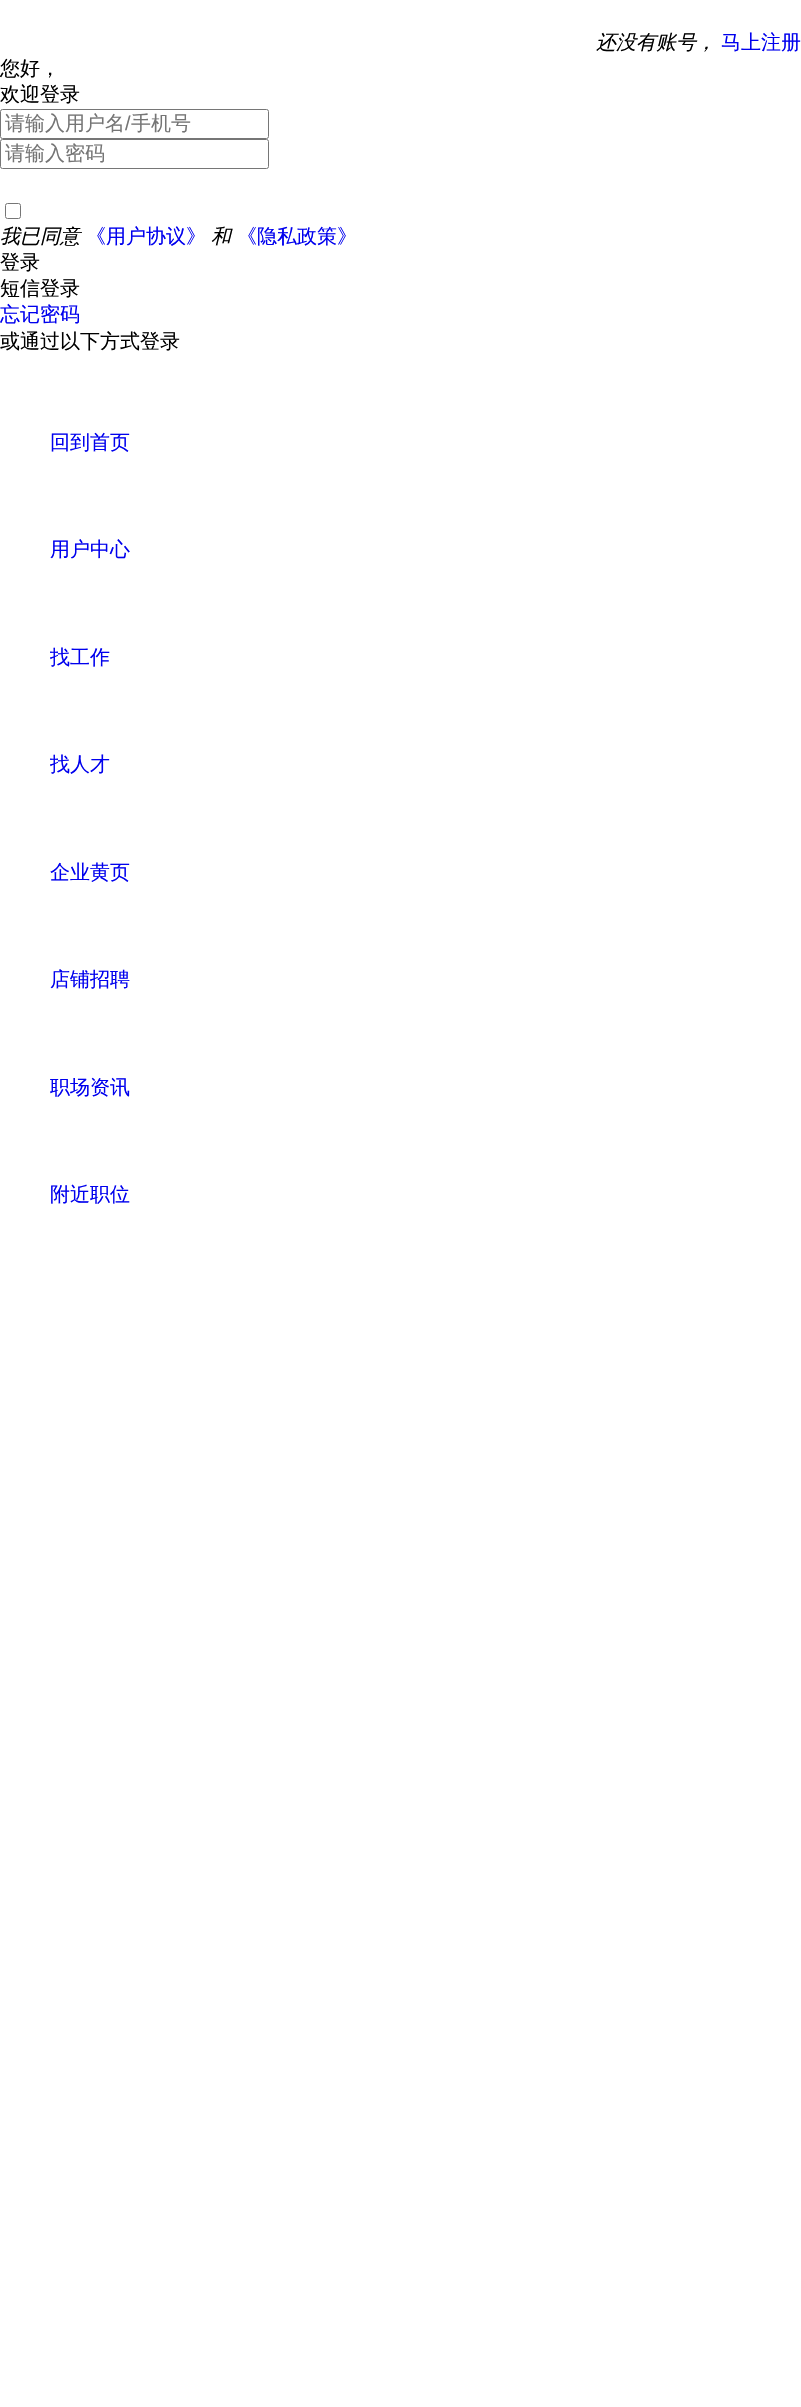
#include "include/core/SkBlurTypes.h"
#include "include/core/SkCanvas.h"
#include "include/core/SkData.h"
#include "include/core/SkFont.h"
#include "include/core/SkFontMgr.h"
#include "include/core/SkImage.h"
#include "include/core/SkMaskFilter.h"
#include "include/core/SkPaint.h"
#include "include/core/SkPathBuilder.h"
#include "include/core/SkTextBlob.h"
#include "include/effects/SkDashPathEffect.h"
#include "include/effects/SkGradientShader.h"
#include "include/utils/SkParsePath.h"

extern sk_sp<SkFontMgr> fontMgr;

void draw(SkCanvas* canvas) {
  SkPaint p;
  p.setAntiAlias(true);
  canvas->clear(SK_ColorWHITE);
  p.setStyle(SkPaint::kStroke_Style);
  p.setStrokeWidth(1);
  p.setColor(SkColorSetRGB(118, 118, 118));
  canvas->drawRoundRect(SkRect::MakeLTRB(0.5f, 109.5f, 268.5f, 138.5f), 2, 2, p);
  canvas->drawRoundRect(SkRect::MakeLTRB(0.5f, 139.5f, 268.5f, 168.5f), 2, 2, p);
  canvas->drawRoundRect(SkRect::MakeLTRB(5.5f, 203.5f, 20.5f, 218.5f), 2, 2, p);
  SkFont font1(fontMgr->matchFamilyStyle("WenQuanYi Zen Hei", SkFontStyle(500, SkFontStyle::kNormal_Width, SkFontStyle::kItalic_Slant)), 20);
  font1.setSubpixel(true);
  p.setStyle(SkPaint::kFill_Style);
  p.setColor(SK_ColorBLACK);
  canvas->drawString("还没有账号，", 596, 49, font1, p);
  SkFont font2(fontMgr->matchFamilyStyle("WenQuanYi Zen Hei", SkFontStyle(500, SkFontStyle::kNormal_Width, SkFontStyle::kUpright_Slant)), 20);
  font2.setSubpixel(true);
  p.setColor(SkColorSetRGB(0, 0, 238));
  canvas->drawString("马上注册", 721, 49, font2, p);
  p.setColor(SK_ColorBLACK);
  canvas->drawString("您好，", 0, 75, font2, p);
  canvas->drawString("欢迎登录", 0, 101, font2, p);
  p.setColor(SkColorSetRGB(117, 117, 117));
  canvas->drawString("请输入用户名", 5, 130, font2, p);
  SkFont font3(fontMgr->matchFamilyStyle("Liberation Sans", SkFontStyle::Normal()), 20);
  font3.setSubpixel(true);
  canvas->drawString("/", 125, 130, font3, p);
  canvas->drawString("手机号", 131, 130, font2, p);
  canvas->drawString("请输入密码", 5, 160, font2, p);
  p.setColor(SK_ColorBLACK);
  canvas->drawString("我已同意", 0, 243, font1, p);
  p.setColor(SkColorSetRGB(0, 0, 238));
  canvas->drawString("《用户协议》", 86, 243, font2, p);
  p.setColor(SK_ColorBLACK);
  canvas->drawString("和", 211, 243, font1, p);
  p.setColor(SkColorSetRGB(0, 0, 238));
  canvas->drawString("《隐私政策》", 237, 243, font2, p);
  p.setColor(SK_ColorBLACK);
  canvas->drawString("登录", 0, 269, font2, p);
  canvas->drawString("短信登录", 0, 295, font2, p);
  p.setColor(SkColorSetRGB(0, 0, 238));
  canvas->drawString("忘记密码", 0, 321, font2, p);
  p.setColor(SK_ColorBLACK);
  canvas->drawString("或通过以下方式登录", 0, 348, font2, p);
  p.setColor(SkColorSetRGB(0, 0, 238));
  canvas->drawString("回到首页", 50, 449, font2, p);
  canvas->drawString("用户中心", 50, 556, font2, p);
  canvas->drawString("找工作", 50, 664, font2, p);
  canvas->drawString("找人才", 50, 771, font2, p);
  canvas->drawString("企业黄页", 50, 879, font2, p);
  canvas->drawString("店铺招聘", 50, 986, font2, p);
  canvas->drawString("职场资讯", 50, 1094, font2, p);
  canvas->drawString("附近职位", 50, 1201, font2, p);
}
